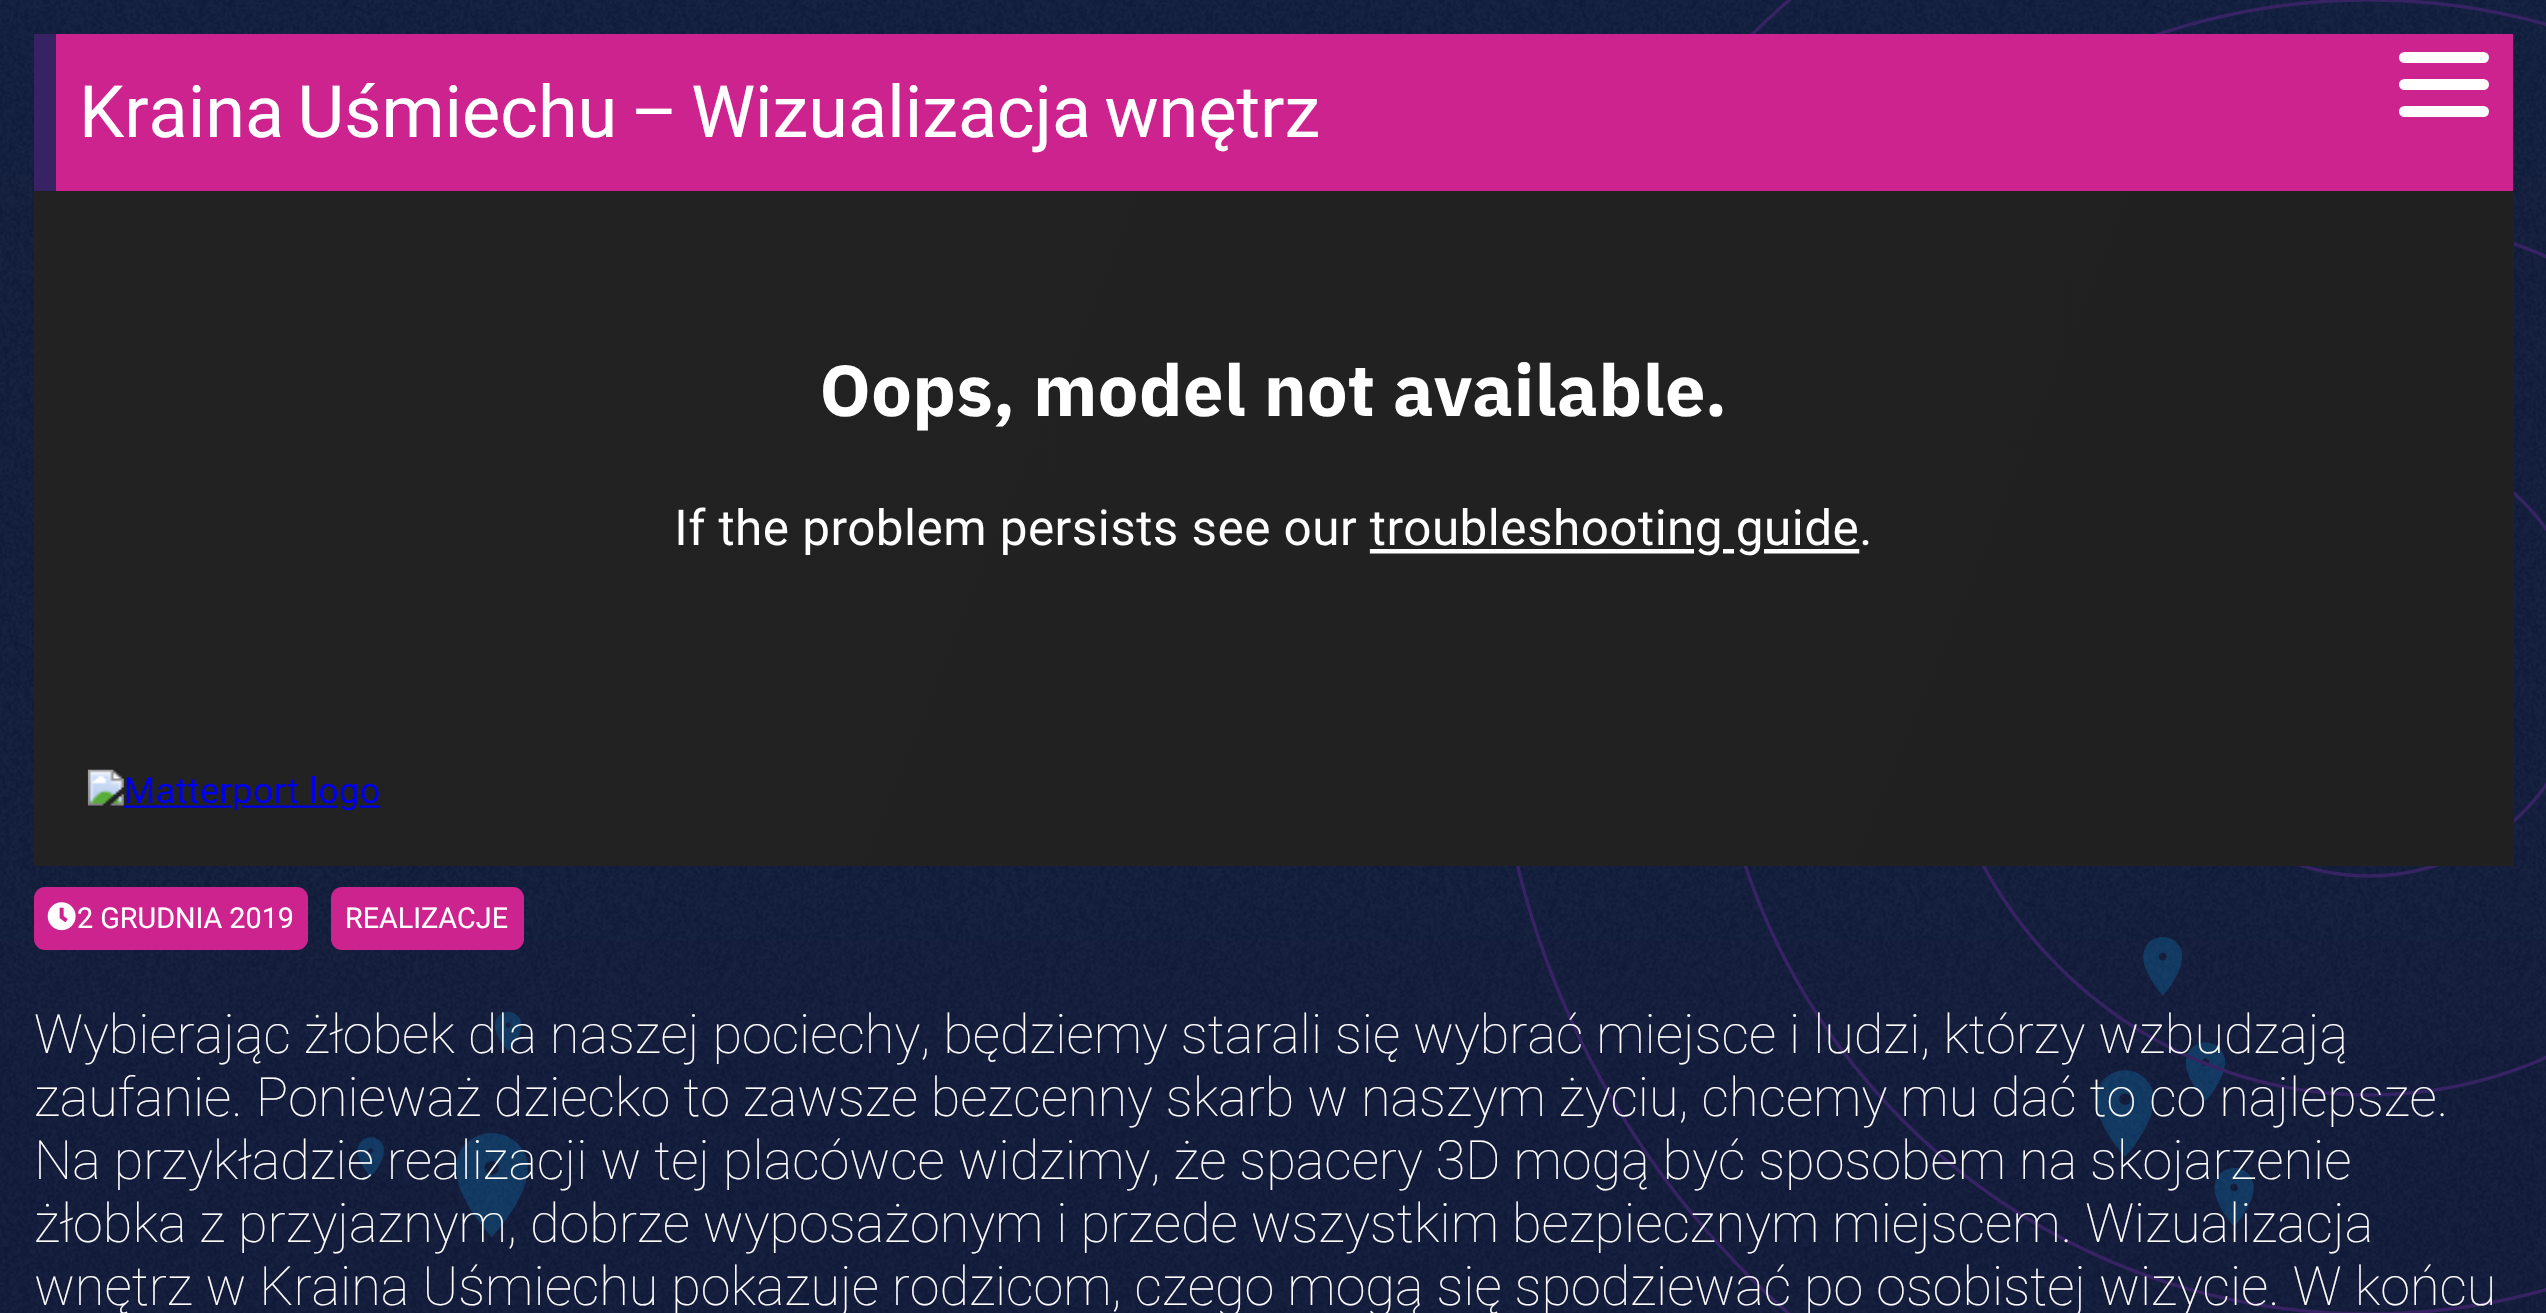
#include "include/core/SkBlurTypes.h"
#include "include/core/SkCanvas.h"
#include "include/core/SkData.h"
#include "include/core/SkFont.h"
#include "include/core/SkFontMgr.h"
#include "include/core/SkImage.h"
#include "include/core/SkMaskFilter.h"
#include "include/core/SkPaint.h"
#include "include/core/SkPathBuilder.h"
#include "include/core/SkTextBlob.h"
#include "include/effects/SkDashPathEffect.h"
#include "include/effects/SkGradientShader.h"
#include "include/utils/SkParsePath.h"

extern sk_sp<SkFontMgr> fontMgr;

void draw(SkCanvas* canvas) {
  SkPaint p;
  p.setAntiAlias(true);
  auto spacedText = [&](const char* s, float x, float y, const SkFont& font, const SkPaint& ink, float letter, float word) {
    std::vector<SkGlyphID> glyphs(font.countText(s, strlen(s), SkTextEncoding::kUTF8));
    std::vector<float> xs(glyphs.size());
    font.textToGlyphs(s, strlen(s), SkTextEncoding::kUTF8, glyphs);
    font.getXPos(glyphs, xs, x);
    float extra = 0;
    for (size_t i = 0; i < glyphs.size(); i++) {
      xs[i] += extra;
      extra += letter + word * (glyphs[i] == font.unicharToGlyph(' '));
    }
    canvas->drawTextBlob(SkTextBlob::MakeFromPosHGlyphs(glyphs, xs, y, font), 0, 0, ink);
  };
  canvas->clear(SK_ColorWHITE);
  {
    const SkColor colors[] = {SkColorSetRGB(20, 35, 77), SkColorSetRGB(26, 8, 45)};
    const float stops[] = {0, 1};
    const SkPoint ends[] = {{1273, 0}, {1274, 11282}};
    p.setShader(SkGradientShader::MakeLinear(ends, colors, stops, 2, SkTileMode::kClamp));
    p.setAlpha(255);
  }
  canvas->drawRect(SkRect::MakeLTRB(0, 0, 2546, 1313), p);
  canvas->drawImageRect(SkImages::DeferredFromEncodedData(SkData::MakeFromFileName("images/1.png")), SkRect::MakeLTRB(0, 0, 2546, 1313), SkSamplingOptions());
  canvas->drawImageRect(SkImages::DeferredFromEncodedData(SkData::MakeFromFileName("images/2.png")), SkRect::MakeLTRB(357, 0, 2546, 1313), SkSamplingOptions());
  p.setShader(nullptr);
  p.setColor(SkColorSetRGB(204, 35, 143));
  canvas->drawRect(SkRect::MakeLTRB(56, 34, 2513, 191), p);
  p.setColor(SK_ColorWHITE);
  canvas->drawRoundRect(SkRect::MakeLTRB(2399, 52, 2489, 63), 5.5f, 5.5f, p);
  canvas->drawRoundRect(SkRect::MakeLTRB(2399, 79, 2489, 90), 5.5f, 5.5f, p);
  canvas->drawRoundRect(SkRect::MakeLTRB(2399, 106, 2489, 117), 5.5f, 5.5f, p);
  p.setColor(SkColorSetRGB(55, 35, 100));
  canvas->drawRect(SkRect::MakeLTRB(34, 34, 56, 191), p);
  canvas->drawImageRect(SkImages::DeferredFromEncodedData(SkData::MakeFromFileName("images/3.png")), SkRect::MakeLTRB(34, 191, 2514, 867), SkSamplingOptions());
  p.setColor(SkColorSetRGB(204, 35, 143));
  canvas->drawRoundRect(SkRect::MakeLTRB(34, 887, 308, 950), 11, 11, p);
  canvas->drawImageRect(SkImages::DeferredFromEncodedData(SkData::MakeFromFileName("images/4.png")), SkRect::MakeLTRB(47, 902, 76, 931), SkSamplingOptions());
  canvas->drawRoundRect(SkRect::MakeLTRB(331, 887, 524, 950), 11, 11, p);
  SkFont font1(fontMgr->matchFamilyStyle("Roboto", SkFontStyle::Normal()), 72);
  font1.setSubpixel(true);
  p.setColor(SK_ColorWHITE);
  spacedText("Kraina Uśmiechu – Wizualizacja wnętrz", 79, 137, font1, p, 0, -4.5f);
  SkFont font2(fontMgr->matchFamilyStyle("Roboto", SkFontStyle::Normal()), 28.75f);
  font2.setSubpixel(true);
  canvas->drawString("2 GRUDNIA 2019", 77, 928, font2, p);
  canvas->drawString("REALIZACJE", 345, 928, font2, p);
  SkFont font3(fontMgr->matchFamilyStyle("Roboto", SkFontStyle(100, SkFontStyle::kNormal_Width, SkFontStyle::kUpright_Slant)), 54);
  font3.setSubpixel(true);
  canvas->drawString("Wybierając żłobek dla naszej pociechy, będziemy starali się wybrać miejsce i ludzi, którzy wzbudzają", 34, 1053, font3, p);
  canvas->drawString("zaufanie. Ponieważ dziecko to zawsze bezcenny skarb w naszym życiu, chcemy mu dać to co najlepsze.", 34, 1116, font3, p);
  canvas->drawString("Na przykładzie realizacji w tej placówce widzimy, że spacery 3D mogą być sposobem na skojarzenie", 34, 1179, font3, p);
  canvas->drawString("żłobka z przyjaznym, dobrze wyposażonym i przede wszystkim bezpiecznym miejscem. Wizualizacja", 34, 1242, font3, p);
  canvas->drawString("wnętrz w Kraina Uśmiechu pokazuje rodzicom, czego mogą się spodziewać po osobistej wizycie. W końcu", 34, 1305, font3, p);
}
